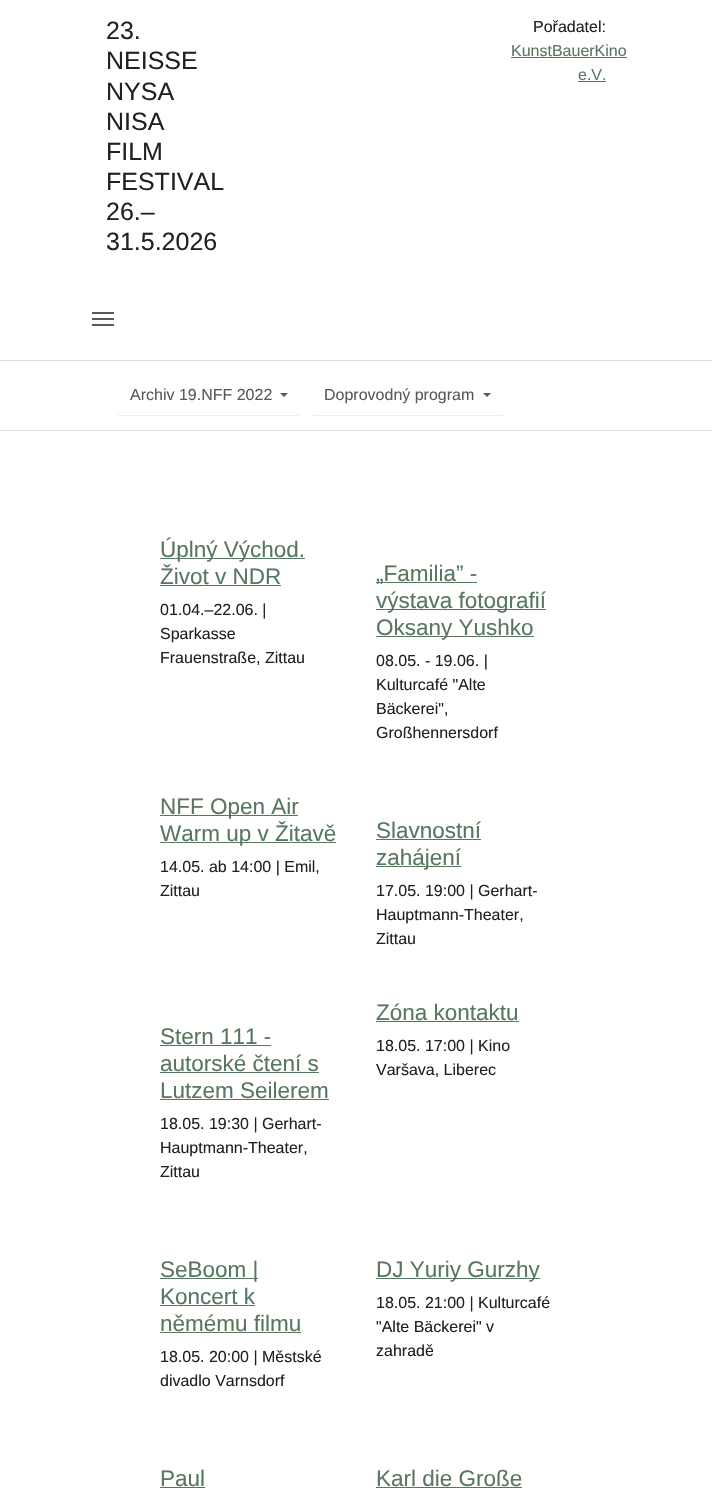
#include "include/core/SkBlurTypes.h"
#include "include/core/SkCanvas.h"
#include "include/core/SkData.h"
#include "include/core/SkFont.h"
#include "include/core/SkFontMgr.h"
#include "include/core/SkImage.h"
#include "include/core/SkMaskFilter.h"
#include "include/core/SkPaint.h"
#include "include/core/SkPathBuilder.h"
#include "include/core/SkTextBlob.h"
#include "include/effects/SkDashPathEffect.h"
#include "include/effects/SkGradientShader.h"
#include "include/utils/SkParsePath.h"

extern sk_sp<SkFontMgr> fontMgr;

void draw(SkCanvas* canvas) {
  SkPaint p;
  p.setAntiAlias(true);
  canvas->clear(SK_ColorWHITE);
  p.setColor(SkColorSetRGB(217, 217, 217));
  canvas->drawRect(SkRect::MakeLTRB(0, 360, 712, 361), p);
  p.setColor(SkColorSetRGB(87, 119, 96));
  canvas->drawRect(SkRect::MakeLTRB(511, 57, 627, 58), p);
  canvas->drawRect(SkRect::MakeLTRB(578, 81, 606, 82), p);
  p.setColor(SkColorSetRGB(89, 89, 89));
  canvas->drawRect(SkRect::MakeLTRB(92, 318, 114, 320), p);
  canvas->drawRect(SkRect::MakeLTRB(92, 312, 114, 314), p);
  canvas->drawRect(SkRect::MakeLTRB(92, 324, 114, 326), p);
  p.setColor(SkColorSetRGB(217, 217, 217));
  canvas->drawRect(SkRect::MakeLTRB(0, 430, 712, 431), p);
  {
    const SkColor colors[] = {SkColorSetARGB(38, 255, 255, 255), SkColorSetARGB(0, 255, 255, 255)};
    const float stops[] = {0, 1};
    const SkPoint ends[] = {{356, 360}, {356, 430}};
    p.setShader(SkGradientShader::MakeLinear(ends, colors, stops, 2, SkTileMode::kClamp));
    p.setAlpha(255);
  }
  canvas->drawRect(SkRect::MakeLTRB(0, 360, 712, 361), p);
  canvas->save();
  canvas->clipPath(SkPathBuilder(SkPathFillType::kEvenOdd).moveTo(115, 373).lineTo(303, 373).lineTo(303, 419).lineTo(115, 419).close().moveTo(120, 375).lineTo(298, 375).cubicTo(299, 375, 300, 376, 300, 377).lineTo(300, 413).cubicTo(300, 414, 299, 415, 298, 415).lineTo(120, 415).cubicTo(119, 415, 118, 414, 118, 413).lineTo(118, 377).cubicTo(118, 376, 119, 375, 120, 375).close().detach(), true);
  p.setShader(nullptr);
  p.setColor(SkColorSetARGB(18, 0, 0, 0));
  p.setMaskFilter(SkMaskFilter::MakeBlur(kNormal_SkBlurStyle, 0.5f));
  canvas->drawRoundRect(SkRect::MakeLTRB(118, 376, 300, 416), 2, 2, p);
  p.setMaskFilter(nullptr);
  canvas->restore();
  p.setColor(SkColorSetRGB(89, 89, 89));
  canvas->drawPath(SkPathBuilder().moveTo(280, 393).lineTo(288, 393).lineTo(284, 397).close().detach(), p);
  canvas->save();
  canvas->clipPath(SkPathBuilder(SkPathFillType::kEvenOdd).moveTo(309, 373).lineTo(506, 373).lineTo(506, 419).lineTo(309, 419).close().moveTo(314, 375).lineTo(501, 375).cubicTo(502, 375, 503, 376, 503, 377).lineTo(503, 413).cubicTo(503, 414, 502, 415, 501, 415).lineTo(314, 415).cubicTo(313, 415, 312, 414, 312, 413).lineTo(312, 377).cubicTo(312, 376, 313, 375, 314, 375).close().detach(), true);
  p.setColor(SkColorSetARGB(18, 0, 0, 0));
  p.setMaskFilter(SkMaskFilter::MakeBlur(kNormal_SkBlurStyle, 0.5f));
  canvas->drawRoundRect(SkRect::MakeLTRB(312, 376, 503, 416), 2, 2, p);
  p.setMaskFilter(nullptr);
  canvas->restore();
  p.setColor(SkColorSetRGB(89, 89, 89));
  canvas->drawPath(SkPathBuilder().moveTo(483, 393).lineTo(491, 393).lineTo(487, 397).close().detach(), p);
  p.setColor(SkColorSetRGB(87, 119, 96));
  canvas->drawRect(SkRect::MakeLTRB(160, 558, 305, 559), p);
  canvas->drawRect(SkRect::MakeLTRB(160, 585, 281, 586), p);
  canvas->drawRect(SkRect::MakeLTRB(376, 582, 477, 583), p);
  canvas->drawRect(SkRect::MakeLTRB(376, 609, 546, 610), p);
  canvas->drawRect(SkRect::MakeLTRB(376, 636, 534, 637), p);
  canvas->drawRect(SkRect::MakeLTRB(160, 815, 298, 816), p);
  canvas->drawRect(SkRect::MakeLTRB(160, 842, 336, 843), p);
  canvas->drawRect(SkRect::MakeLTRB(376, 839, 481, 840), p);
  canvas->drawRect(SkRect::MakeLTRB(376, 866, 461, 867), p);
  canvas->drawRect(SkRect::MakeLTRB(160, 1045, 271, 1046), p);
  canvas->drawRect(SkRect::MakeLTRB(160, 1072, 319, 1073), p);
  canvas->drawRect(SkRect::MakeLTRB(160, 1099, 329, 1100), p);
  canvas->drawRect(SkRect::MakeLTRB(376, 1021, 519, 1022), p);
  canvas->drawRect(SkRect::MakeLTRB(160, 1278, 258, 1279), p);
  canvas->drawRect(SkRect::MakeLTRB(160, 1305, 255, 1306), p);
  canvas->drawRect(SkRect::MakeLTRB(160, 1332, 301, 1333), p);
  canvas->drawRect(SkRect::MakeLTRB(376, 1278, 540, 1279), p);
  canvas->drawRect(SkRect::MakeLTRB(160, 1487, 205, 1488), p);
  canvas->drawRect(SkRect::MakeLTRB(376, 1487, 522, 1488), p);
  SkFont font1(fontMgr->matchFamilyStyle("Liberation Sans", SkFontStyle::Normal()), 25);
  font1.setSubpixel(true);
  p.setColor(SkColorSetRGB(33, 33, 33));
  canvas->drawString("23.", 106, 39, font1, p);
  canvas->drawString("NEISSE", 106, 69, font1, p);
  canvas->drawString("NYSA", 106, 100, font1, p);
  canvas->drawString("NISA", 106, 130, font1, p);
  canvas->drawString("FILM", 106, 160, font1, p);
  canvas->drawString("FESTIVAL", 106, 190, font1, p);
  canvas->drawString("26.–", 106, 220, font1, p);
  canvas->drawString("31.5.2026", 106, 250, font1, p);
  SkFont font2(fontMgr->matchFamilyStyle("Liberation Sans", SkFontStyle::Normal()), 16);
  font2.setSubpixel(true);
  canvas->drawString("Pořadatel:", 533, 32, font2, p);
  p.setColor(SkColorSetRGB(87, 119, 96));
  canvas->drawString("KunstBauerKino", 511, 56, font2, p);
  canvas->drawString("e.V.", 578, 80, font2, p);
  p.setColor(SkColorSetRGB(89, 89, 89));
  canvas->drawString("Archiv 19.NFF 2022", 130, 400, font2, p);
  canvas->drawString("Doprovodný program", 324, 400, font2, p);
  SkFont font3(fontMgr->matchFamilyStyle("Liberation Sans", SkFontStyle::Normal()), 22.5f);
  font3.setSubpixel(true);
  p.setColor(SkColorSetRGB(87, 119, 96));
  canvas->drawString("Úplný Východ.", 160, 557, font3, p);
  canvas->drawString("Život v NDR", 160, 584, font3, p);
  p.setColor(SkColorSetRGB(33, 33, 33));
  canvas->drawString("01.04.–22.06. |", 160, 615, font2, p);
  canvas->drawString("Sparkasse", 160, 639, font2, p);
  canvas->drawString("Frauenstraße, Zittau", 160, 663, font2, p);
  p.setColor(SkColorSetRGB(87, 119, 96));
  canvas->drawString("„Familia” -", 376, 581, font3, p);
  canvas->drawString("výstava fotografií", 376, 608, font3, p);
  canvas->drawString("Oksany Yushko", 376, 635, font3, p);
  p.setColor(SkColorSetRGB(33, 33, 33));
  canvas->drawString("08.05. - 19.06. |", 376, 666, font2, p);
  canvas->drawString("Kulturcafé \"Alte", 376, 690, font2, p);
  canvas->drawString("Bäckerei\",", 376, 714, font2, p);
  canvas->drawString("Großhennersdorf", 376, 738, font2, p);
  p.setColor(SkColorSetRGB(87, 119, 96));
  canvas->drawString("NFF Open Air", 160, 814, font3, p);
  canvas->drawString("Warm up v Žitavě", 160, 841, font3, p);
  p.setColor(SkColorSetRGB(33, 33, 33));
  canvas->drawString("14.05. ab 14:00 | Emil,", 160, 872, font2, p);
  canvas->drawString("Zittau", 160, 896, font2, p);
  p.setColor(SkColorSetRGB(87, 119, 96));
  canvas->drawString("Slavnostní", 376, 838, font3, p);
  canvas->drawString("zahájení", 376, 865, font3, p);
  p.setColor(SkColorSetRGB(33, 33, 33));
  canvas->drawString("17.05. 19:00 | Gerhart-", 376, 896, font2, p);
  canvas->drawString("Hauptmann-Theater,", 376, 920, font2, p);
  canvas->drawString("Zittau", 376, 944, font2, p);
  p.setColor(SkColorSetRGB(87, 119, 96));
  canvas->drawString("Stern 111 -", 160, 1044, font3, p);
  canvas->drawString("autorské čtení s", 160, 1071, font3, p);
  canvas->drawString("Lutzem Seilerem", 160, 1098, font3, p);
  p.setColor(SkColorSetRGB(33, 33, 33));
  canvas->drawString("18.05. 19:30 | Gerhart-", 160, 1129, font2, p);
  canvas->drawString("Hauptmann-Theater,", 160, 1153, font2, p);
  canvas->drawString("Zittau", 160, 1177, font2, p);
  p.setColor(SkColorSetRGB(87, 119, 96));
  canvas->drawString("Zóna kontaktu", 376, 1020, font3, p);
  p.setColor(SkColorSetRGB(33, 33, 33));
  canvas->drawString("18.05. 17:00 | Kino", 376, 1051, font2, p);
  canvas->drawString("Varšava, Liberec", 376, 1075, font2, p);
  p.setColor(SkColorSetRGB(87, 119, 96));
  canvas->drawString("SeBoom |", 160, 1277, font3, p);
  canvas->drawString("Koncert k", 160, 1304, font3, p);
  canvas->drawString("němému filmu", 160, 1331, font3, p);
  p.setColor(SkColorSetRGB(33, 33, 33));
  canvas->drawString("18.05. 20:00 | Městské", 160, 1362, font2, p);
  canvas->drawString("divadlo Varnsdorf", 160, 1386, font2, p);
  p.setColor(SkColorSetRGB(87, 119, 96));
  canvas->drawString("DJ Yuriy Gurzhy", 376, 1277, font3, p);
  p.setColor(SkColorSetRGB(33, 33, 33));
  canvas->drawString("18.05. 21:00 | Kulturcafé", 376, 1308, font2, p);
  canvas->drawString("\"Alte Bäckerei\" v", 376, 1332, font2, p);
  canvas->drawString("zahradě", 376, 1356, font2, p);
  p.setColor(SkColorSetRGB(87, 119, 96));
  canvas->drawString("Paul", 160, 1486, font3, p);
  canvas->drawString("Karl die Große", 376, 1486, font3, p);
}
